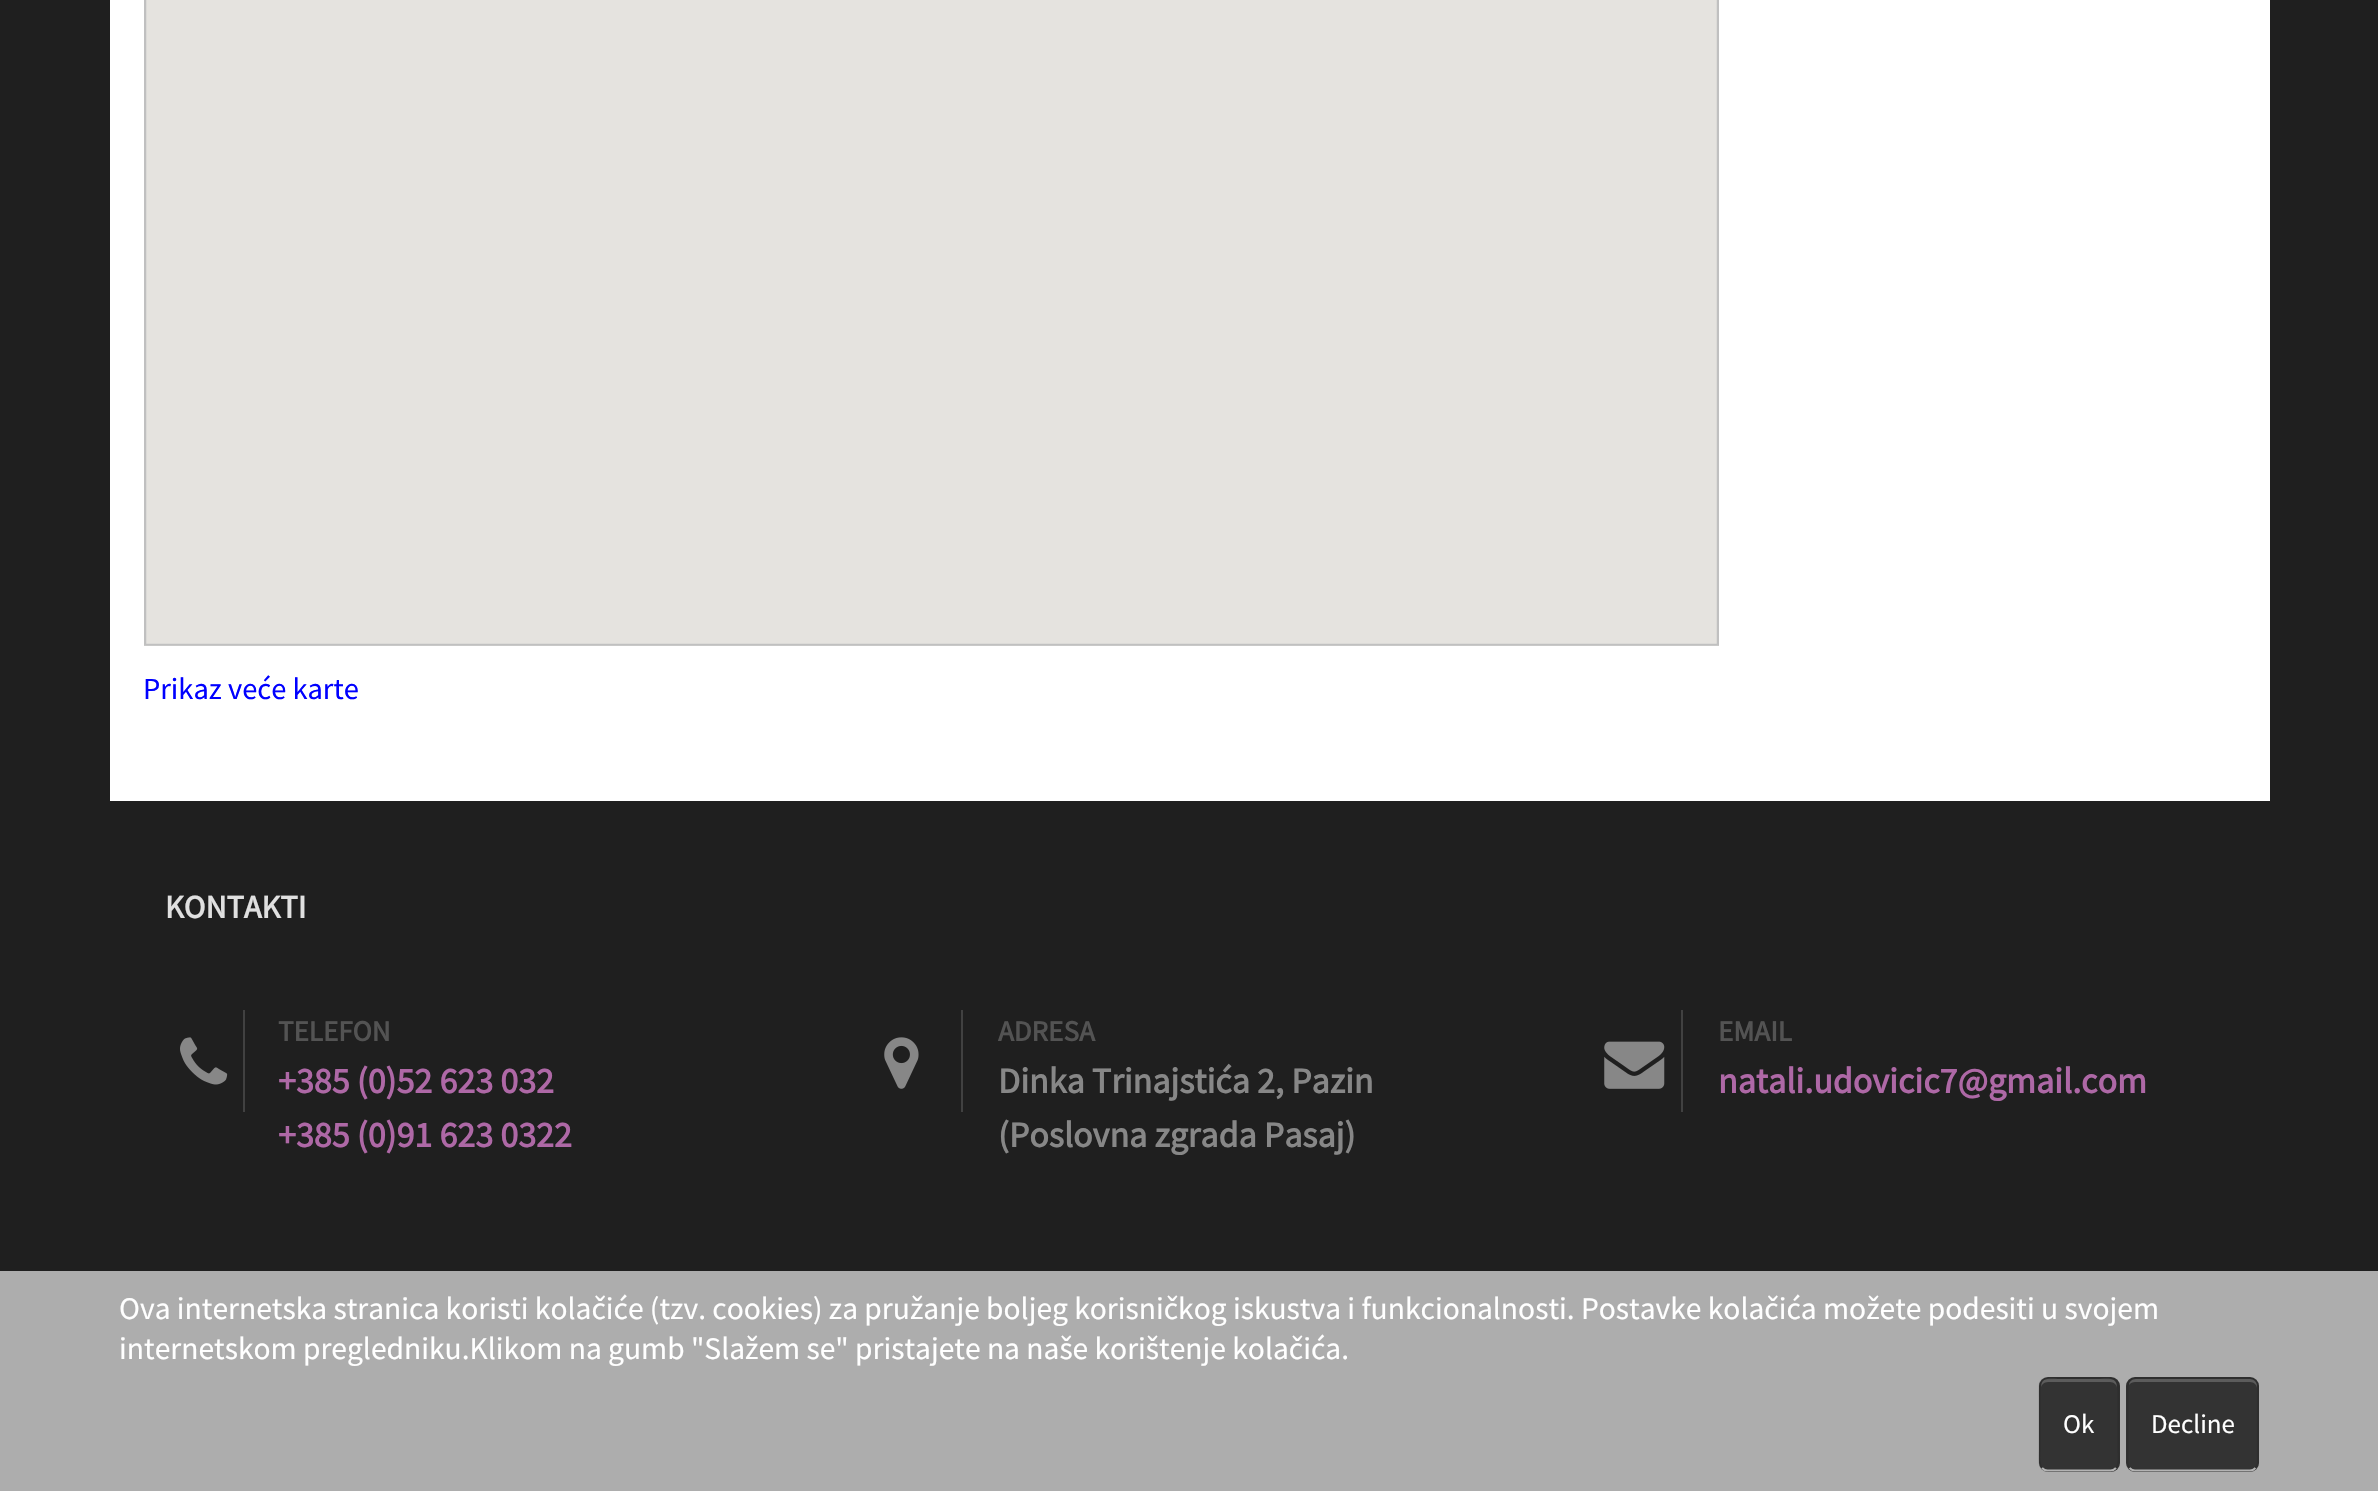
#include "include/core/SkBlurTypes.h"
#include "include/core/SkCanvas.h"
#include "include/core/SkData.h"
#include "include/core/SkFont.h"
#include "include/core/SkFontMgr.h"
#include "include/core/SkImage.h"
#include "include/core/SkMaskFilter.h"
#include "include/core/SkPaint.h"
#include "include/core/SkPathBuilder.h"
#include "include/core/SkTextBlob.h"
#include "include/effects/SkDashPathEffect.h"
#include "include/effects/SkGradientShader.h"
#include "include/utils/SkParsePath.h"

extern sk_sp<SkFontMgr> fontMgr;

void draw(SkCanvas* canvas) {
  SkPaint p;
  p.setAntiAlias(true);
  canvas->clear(SkColorSetRGB(31, 31, 31));
  p.setColor(SK_ColorWHITE);
  canvas->drawRect(SkRect::MakeLTRB(110, 0, 2270, 801), p);
  canvas->drawImageRect(SkImages::DeferredFromEncodedData(SkData::MakeFromFileName("images/1.png")), SkRect::MakeLTRB(144, 0, 1719, 646), SkSamplingOptions());
  p.setColor(SkColorSetRGB(65, 65, 65));
  canvas->drawRect(SkRect::MakeLTRB(243, 1010, 245, 1112), p);
  canvas->drawImageRect(SkImages::DeferredFromEncodedData(SkData::MakeFromFileName("images/2.png")), SkRect::MakeLTRB(180, 1037, 228, 1085), SkSamplingOptions());
  canvas->drawRect(SkRect::MakeLTRB(961, 1010, 963, 1112), p);
  canvas->drawImageRect(SkImages::DeferredFromEncodedData(SkData::MakeFromFileName("images/3.png")), SkRect::MakeLTRB(884, 1037, 919, 1089), SkSamplingOptions());
  canvas->drawRect(SkRect::MakeLTRB(1681, 1010, 1683, 1112), p);
  canvas->drawImageRect(SkImages::DeferredFromEncodedData(SkData::MakeFromFileName("images/4.png")), SkRect::MakeLTRB(1604, 1041, 1665, 1089), SkSamplingOptions());
  p.setColor(SkColorSetRGB(173, 173, 173));
  canvas->drawRect(SkRect::MakeLTRB(0, 1271, 2378, 1491), p);
  p.setColor(SkColorSetRGB(51, 51, 51));
  canvas->drawRoundRect(SkRect::MakeLTRB(2039, 1377, 2120, 1472), 9, 9, p);
  p.setColor(SkColorSetRGB(92, 92, 92));
  canvas->drawPath(SkPathBuilder().moveTo(2048, 1382).lineTo(2110, 1382).cubicTo(2114, 1382, 2117, 1385, 2117, 1388).cubicTo(2117, 1377, 2109, 1379, 2100, 1379).lineTo(2058, 1379).cubicTo(2049, 1379, 2041, 1377, 2041, 1388).cubicTo(2041, 1385, 2044, 1382, 2048, 1382).close().detach(), p);
  p.setStyle(SkPaint::kStroke_Style);
  p.setStrokeWidth(2.2f);
  p.setColor(SkColorSetRGB(179, 179, 179));
  canvas->drawPath(SkPathBuilder().moveTo(2116, 1468).cubicTo(2114.5f, 1469.5f, 2112.5f, 1470.5f, 2110.5f, 1470.5f).lineTo(2047.5f, 1470.5f).cubicTo(2045.5f, 1470.5f, 2043.5f, 1469.5f, 2042, 1468).detach(), p);
  p.setColor(SkColorSetARGB(26, 0, 0, 0));
  canvas->drawPath(SkPathBuilder().moveTo(2042, 1468).cubicTo(2037.5f, 1464, 2039.5f, 1454, 2039.5f, 1450).lineTo(2039.5f, 1399).cubicTo(2039.5f, 1378.5f, 2038, 1378, 2058, 1378).lineTo(2100, 1378).cubicTo(2120, 1378, 2118.5f, 1378.5f, 2118.5f, 1399).lineTo(2118.5f, 1450).cubicTo(2118.5f, 1454, 2120.5f, 1464, 2116, 1468).detach(), p);
  p.setStyle(SkPaint::kFill_Style);
  p.setColor(SkColorSetRGB(51, 51, 51));
  canvas->drawRoundRect(SkRect::MakeLTRB(2126, 1377, 2259, 1472), 9, 9, p);
  p.setColor(SkColorSetRGB(92, 92, 92));
  canvas->drawPath(SkPathBuilder().moveTo(2135, 1382).lineTo(2250, 1382).cubicTo(2254, 1382, 2257, 1385, 2257, 1388).lineTo(2257, 1386).cubicTo(2257, 1382, 2254, 1379, 2250, 1379).lineTo(2136, 1379).cubicTo(2132, 1379, 2129, 1382, 2129, 1385).cubicTo(2130, 1383, 2133, 1382, 2135, 1382).close().detach(), p);
  p.setStyle(SkPaint::kStroke_Style);
  p.setColor(SkColorSetRGB(179, 179, 179));
  canvas->drawPath(SkPathBuilder().moveTo(2255.5f, 1468).cubicTo(2254, 1469.5f, 2252, 1470.5f, 2250, 1470.5f).lineTo(2135, 1470.5f).cubicTo(2133, 1470.5f, 2131, 1469.5f, 2129.5f, 1468).detach(), p);
  p.setColor(SkColorSetARGB(26, 0, 0, 0));
  canvas->drawPath(SkPathBuilder().moveTo(2129.5f, 1468).cubicTo(2128, 1466.5f, 2127.5f, 1464.5f, 2127.5f, 1462.5f).lineTo(2127.5f, 1386).cubicTo(2127.5f, 1384, 2128, 1382, 2129.5f, 1380.5f).cubicTo(2131, 1379, 2133, 1378, 2135, 1378).lineTo(2250, 1378).cubicTo(2252, 1378, 2254, 1379, 2255.5f, 1380.5f).cubicTo(2257, 1382, 2258, 1384, 2258, 1386).lineTo(2258, 1462.5f).cubicTo(2258, 1464.5f, 2257, 1466.5f, 2255.5f, 1468).detach(), p);
  SkFont font1(fontMgr->matchFamilyStyle("Source Sans Pro", SkFontStyle::Normal()), 30.5f);
  font1.setSubpixel(true);
  p.setStyle(SkPaint::kFill_Style);
  p.setColor(SkColorSetRGB(0, 0, 255));
  canvas->drawString("Prikaz veće karte", 143, 699, font1, p);
  SkFont font2(fontMgr->matchFamilyStyle("Source Sans Pro", SkFontStyle::Bold()), 32.5f);
  font2.setSubpixel(true);
  p.setColor(SkColorSetRGB(224, 224, 224));
  canvas->drawString("KONTAKTI", 165, 918, font2, p);
  SkFont font3(fontMgr->matchFamilyStyle("Source Sans Pro", SkFontStyle::Bold()), 29);
  font3.setSubpixel(true);
  p.setColor(SkColorSetRGB(83, 83, 83));
  canvas->drawString("TELEFON", 278, 1041, font3, p);
  SkFont font4(fontMgr->matchFamilyStyle("Source Sans Pro", SkFontStyle::Bold()), 36);
  font4.setSubpixel(true);
  p.setColor(SkColorSetRGB(174, 104, 166));
  canvas->drawString("+385 (0)52 623 032", 278, 1093, font4, p);
  canvas->drawString("+385 (0)91 623 0322", 278, 1147, font4, p);
  p.setColor(SkColorSetRGB(83, 83, 83));
  canvas->drawString("ADRESA", 998, 1041, font3, p);
  p.setColor(SkColorSetRGB(135, 135, 135));
  canvas->drawString("Dinka Trinajstića 2, Pazin", 998, 1093, font4, p);
  canvas->drawString("(Poslovna zgrada Pasaj)", 998, 1147, font4, p);
  p.setColor(SkColorSetRGB(83, 83, 83));
  canvas->drawString("EMAIL", 1718, 1041, font3, p);
  p.setColor(SkColorSetRGB(174, 104, 166));
  canvas->drawString("natali.udovicic7@gmail.com", 1718, 1093, font4, p);
  SkFont font5(fontMgr->matchFamilyStyle("Source Sans Pro", SkFontStyle::Normal()), 31.5f);
  font5.setSubpixel(true);
  p.setColor(SK_ColorWHITE);
  canvas->drawString("Ova internetska stranica koristi kolačiće (tzv. cookies) za pružanje boljeg korisničkog iskustva i funkcionalnosti. Postavke kolačića možete podesiti u svojem", 119, 1319, font5, p);
  canvas->drawString("internetskom pregledniku.Klikom na gumb \"Slažem se\" pristajete na naše korištenje kolačića.", 119, 1359, font5, p);
  SkFont font6(fontMgr->matchFamilyStyle("Source Sans Pro", SkFontStyle::Normal()), 27);
  font6.setSubpixel(true);
  canvas->drawString("Ok", 2063, 1433, font6, p);
  canvas->drawString("Decline", 2151, 1433, font6, p);
}
